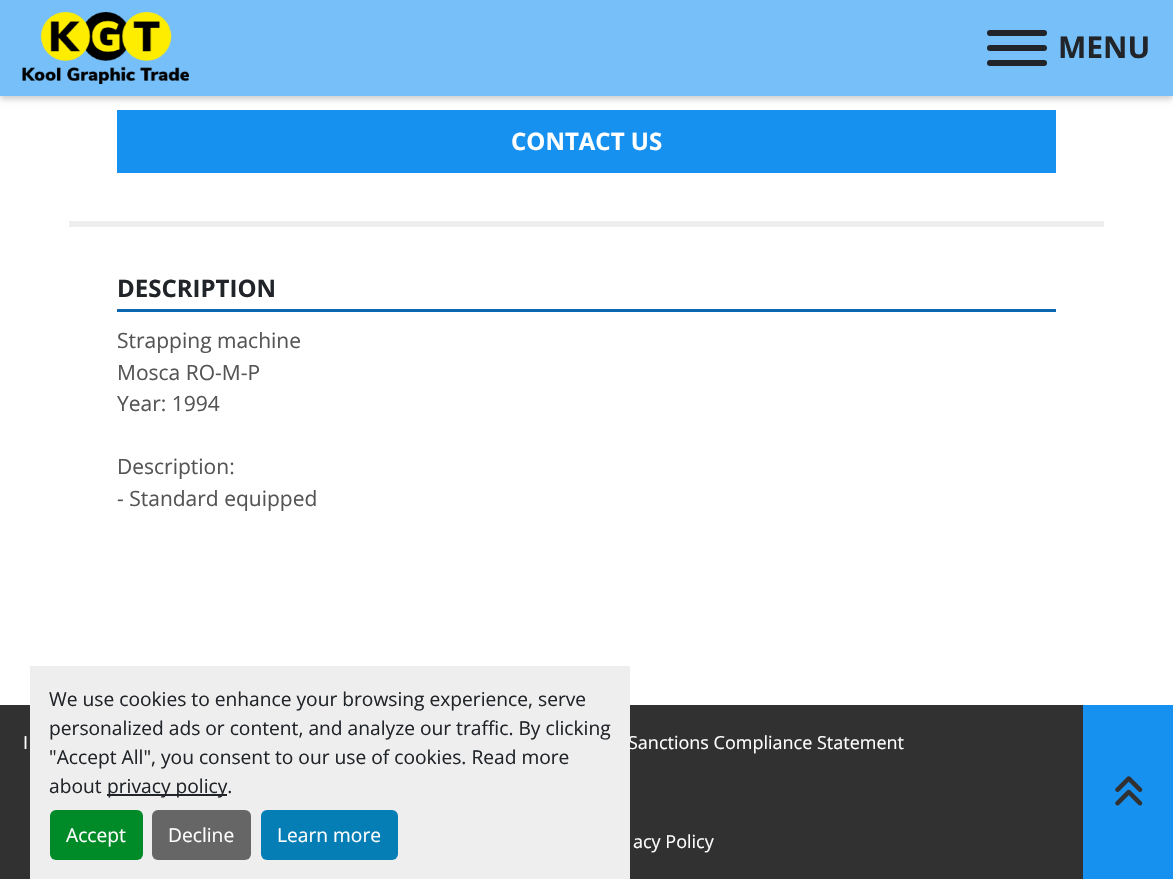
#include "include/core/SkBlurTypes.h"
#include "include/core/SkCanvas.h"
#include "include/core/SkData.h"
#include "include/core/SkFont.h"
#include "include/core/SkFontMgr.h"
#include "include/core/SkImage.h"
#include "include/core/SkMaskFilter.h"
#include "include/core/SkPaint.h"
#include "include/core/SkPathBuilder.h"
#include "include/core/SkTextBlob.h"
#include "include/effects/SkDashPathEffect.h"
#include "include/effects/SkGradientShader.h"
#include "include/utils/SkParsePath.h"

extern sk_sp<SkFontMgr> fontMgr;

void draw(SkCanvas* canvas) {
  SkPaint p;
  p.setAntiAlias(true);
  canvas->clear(SK_ColorWHITE);
  p.setColor(SkColorSetARGB(51, 0, 0, 0));
  p.setMaskFilter(SkMaskFilter::MakeBlur(kNormal_SkBlurStyle, 3));
  canvas->drawRect(SkRect::MakeLTRB(0, 3, 1173, 99), p);
  p.setMaskFilter(nullptr);
  p.setColor(SkColorSetRGB(118, 191, 248));
  canvas->drawRect(SkRect::MakeLTRB(0, 0, 1173, 96), p);
  canvas->drawImageRect(SkImages::DeferredFromEncodedData(SkData::MakeFromFileName("images/1.png")), SkRect::MakeLTRB(22, 12, 189, 84), SkSamplingOptions());
  p.setColor(SkColorSetRGB(33, 37, 41));
  canvas->drawRoundRect(SkRect::MakeLTRB(987, 45, 1047, 51), 3, 3, p);
  canvas->drawRoundRect(SkRect::MakeLTRB(987, 30, 1047, 36), 3, 3, p);
  canvas->drawRoundRect(SkRect::MakeLTRB(987, 60, 1047, 66), 3, 3, p);
  p.setColor(SkColorSetRGB(238, 238, 238));
  canvas->drawRect(SkRect::MakeLTRB(69, 221, 1104, 227), p);
  p.setColor(SkColorSetRGB(23, 145, 240));
  canvas->drawRect(SkRect::MakeLTRB(117, 110, 1056, 173), p);
  p.setColor(SkColorSetRGB(11, 103, 175));
  canvas->drawRect(SkRect::MakeLTRB(117, 309, 1056, 312), p);
  p.setColor(SkColorSetRGB(49, 49, 49));
  canvas->drawRect(SkRect::MakeLTRB(0, 705, 1083, 879), p);
  p.setColor(SkColorSetRGB(23, 145, 240));
  canvas->drawRect(SkRect::MakeLTRB(1083, 705, 1173, 879), p);
  canvas->drawImageRect(SkImages::DeferredFromEncodedData(SkData::MakeFromFileName("images/2.png")), SkRect::MakeLTRB(1115, 776, 1143, 806), SkSamplingOptions());
  SkFont font1(fontMgr->matchFamilyStyle("Open Sans", SkFontStyle::Bold()), 30);
  font1.setSubpixel(true);
  p.setColor(SkColorSetRGB(33, 37, 41));
  canvas->drawString("MENU", 1058, 58, font1, p);
  SkFont font2(fontMgr->matchFamilyStyle("Open Sans", SkFontStyle::Bold()), 24);
  font2.setSubpixel(true);
  p.setColor(SK_ColorWHITE);
  canvas->drawString("CONTACT US", 511, 150, font2, p);
  p.setColor(SkColorSetRGB(33, 37, 41));
  canvas->drawString("DESCRIPTION", 117, 297, font2, p);
  SkFont font3(fontMgr->matchFamilyStyle("Open Sans", SkFontStyle::Normal()), 21);
  font3.setSubpixel(true);
  p.setColor(SkColorSetRGB(85, 85, 85));
  canvas->drawString("Strapping machine", 117, 348, font3, p);
  canvas->drawString("Mosca RO-M-P", 117, 380, font3, p);
  canvas->drawString("Year: 1994", 117, 411, font3, p);
  canvas->drawString("Description:", 117, 474, font3, p);
  canvas->drawString("- Standard equipped", 117, 506, font3, p);
  SkFont font4(fontMgr->matchFamilyStyle("Open Sans", SkFontStyle::Normal()), 18);
  font4.setSubpixel(true);
  p.setColor(SK_ColorWHITE);
  canvas->drawString("I", 23, 749, font4, p);
  canvas->drawString("Sanctions Compliance Statement", 628, 749, font4, p);
  canvas->drawString("acy Policy", 633, 848, font4, p);
  p.setColor(SkColorSetRGB(238, 238, 238));
  canvas->drawRect(SkRect::MakeLTRB(30, 666, 630, 879), p);
  SkFont font5(fontMgr->matchFamilyStyle("Open Sans", SkFontStyle::Normal()), 19.2f);
  font5.setSubpixel(true);
  p.setColor(SkColorSetRGB(33, 37, 41));
  canvas->drawString("We use cookies to enhance your browsing experience, serve", 49, 706, font5, p);
  canvas->drawString("personalized ads or content, and analyze our traffic. By clicking", 49, 735, font5, p);
  canvas->drawString("\"Accept All\", you consent to our use of cookies. Read more", 49, 764, font5, p);
  canvas->drawString("about", 49, 793, font5, p);
  canvas->drawRect(SkRect::MakeLTRB(107, 794, 227, 796), p);
  canvas->drawString("privacy policy.", 107, 793, font5, p);
  p.setColor(SkColorSetRGB(0, 138, 40));
  canvas->drawRoundRect(SkRect::MakeLTRB(50, 810, 143, 860), 6, 6, p);
  p.setColor(SK_ColorWHITE);
  canvas->drawString("Accept", 66, 842, font5, p);
  p.setColor(SkColorSetRGB(102, 102, 102));
  canvas->drawRoundRect(SkRect::MakeLTRB(152, 810, 251, 860), 6, 6, p);
  p.setColor(SK_ColorWHITE);
  canvas->drawString("Decline", 168, 842, font5, p);
  p.setColor(SkColorSetRGB(5, 126, 182));
  canvas->drawRoundRect(SkRect::MakeLTRB(261, 810, 398, 860), 6, 6, p);
  p.setColor(SK_ColorWHITE);
  canvas->drawString("Learn more", 277, 842, font5, p);
}
